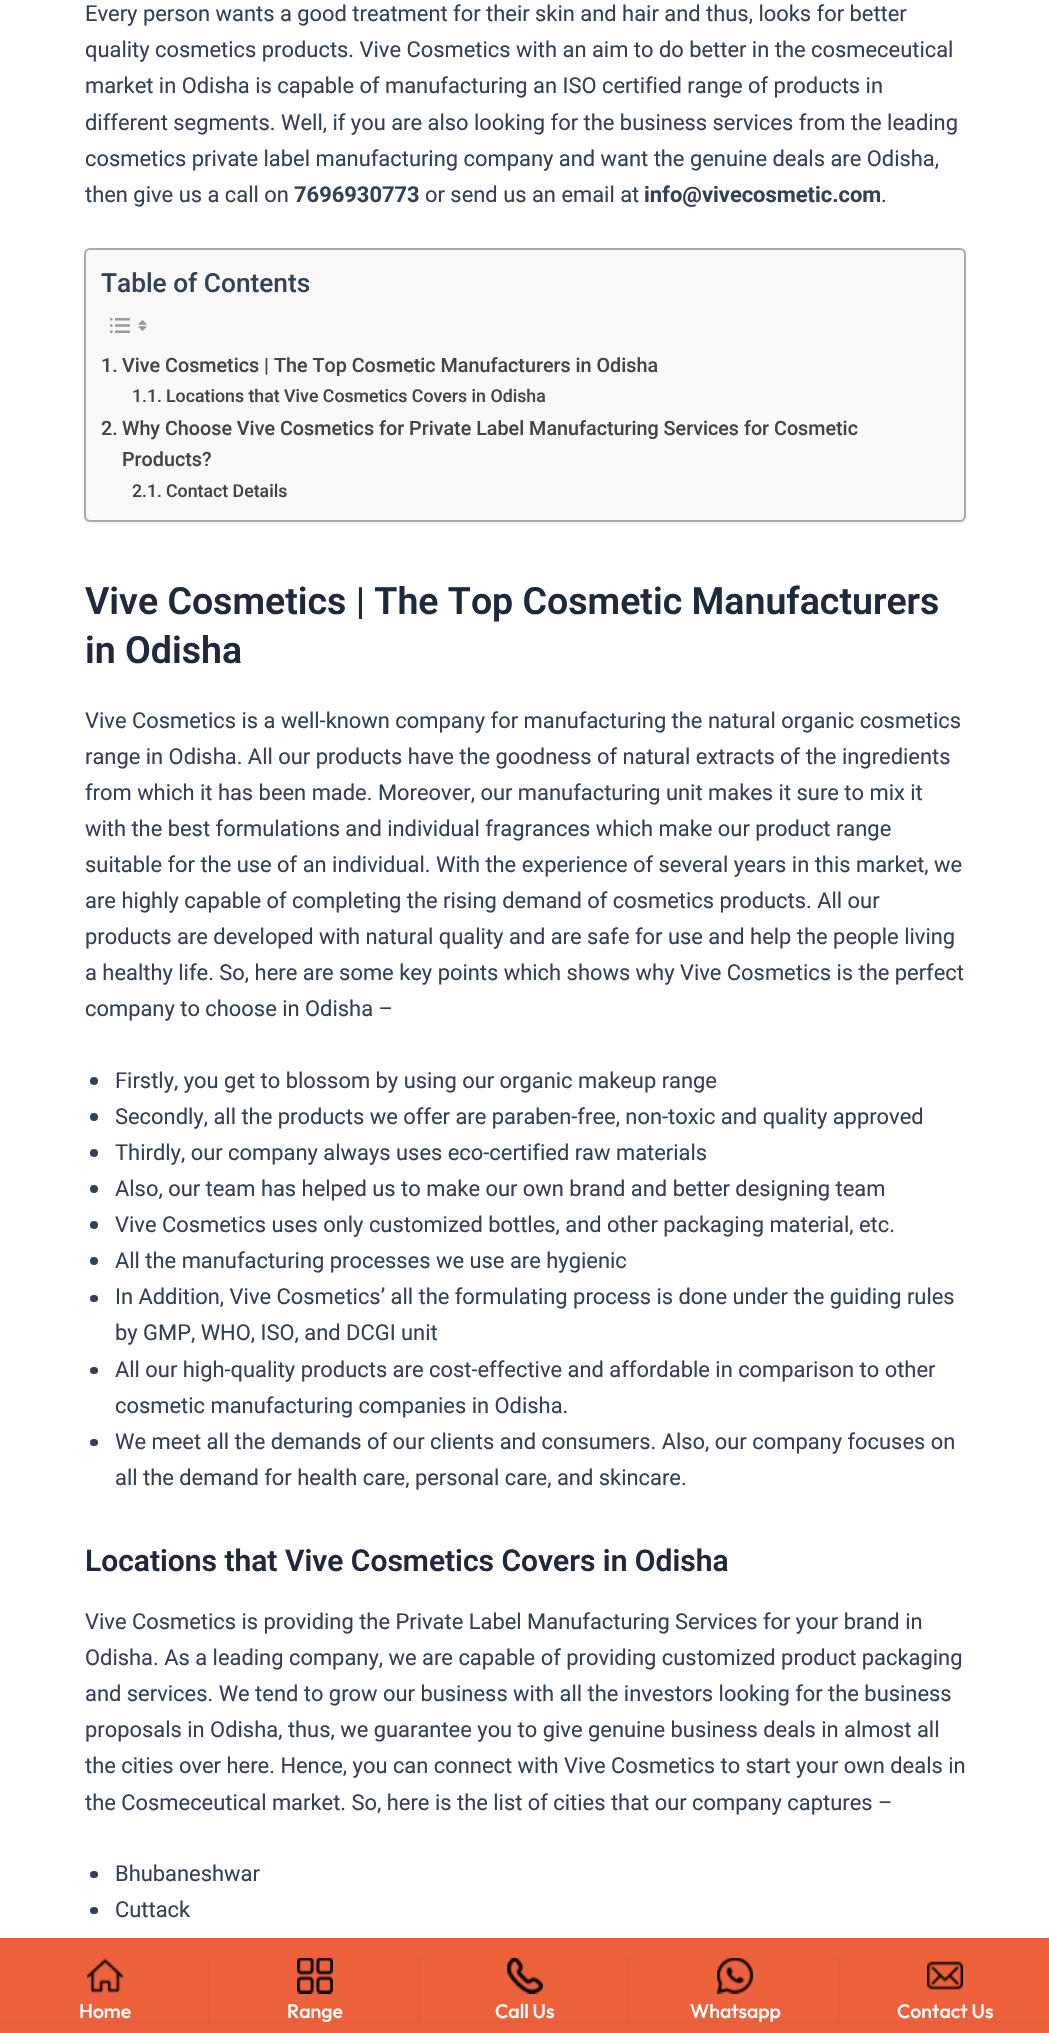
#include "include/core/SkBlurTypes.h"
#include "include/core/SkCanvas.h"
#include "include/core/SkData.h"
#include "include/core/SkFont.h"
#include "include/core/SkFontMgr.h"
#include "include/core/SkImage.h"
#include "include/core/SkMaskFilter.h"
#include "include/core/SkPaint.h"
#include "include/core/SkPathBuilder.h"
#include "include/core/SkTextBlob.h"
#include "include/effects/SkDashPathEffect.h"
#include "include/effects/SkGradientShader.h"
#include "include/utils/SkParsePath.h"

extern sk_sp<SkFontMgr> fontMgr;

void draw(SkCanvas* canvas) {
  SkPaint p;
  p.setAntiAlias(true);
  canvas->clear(SK_ColorWHITE);
  p.setColor(SkColorSetARGB(13, 0, 0, 0));
  p.setMaskFilter(SkMaskFilter::MakeBlur(kNormal_SkBlurStyle, 1));
  canvas->drawRoundRect(SkRect::MakeLTRB(84, 249, 966, 524), 6, 6, p);
  p.setMaskFilter(nullptr);
  p.setColor(SkColorSetRGB(249, 249, 249));
  canvas->drawRoundRect(SkRect::MakeLTRB(85, 249, 965, 521), 5, 5, p);
  p.setStyle(SkPaint::kStroke_Style);
  p.setStrokeWidth(2);
  p.setColor(SkColorSetRGB(170, 170, 170));
  canvas->drawRoundRect(SkRect::MakeLTRB(85, 249, 965, 521), 5, 5, p);
  canvas->drawImageRect(SkImages::DeferredFromEncodedData(SkData::MakeFromFileName("images/1.png")), SkRect::MakeLTRB(110, 318, 130, 333), SkSamplingOptions());
  canvas->drawImageRect(SkImages::DeferredFromEncodedData(SkData::MakeFromFileName("images/2.png")), SkRect::MakeLTRB(138, 320, 147, 331), SkSamplingOptions());
  p.setStyle(SkPaint::kFill_Style);
  p.setColor(SkColorSetRGB(51, 65, 85));
  canvas->drawCircle(94, 1081, 4, p);
  canvas->drawCircle(94, 1117, 4, p);
  canvas->drawCircle(94, 1153, 4, p);
  canvas->drawCircle(94, 1189, 4, p);
  canvas->drawCircle(94, 1225, 4, p);
  canvas->drawCircle(94, 1261, 4, p);
  canvas->drawRoundRect(SkRect::MakeLTRB(90, 1295, 98, 1302), 3.5f, 3.5f, p);
  canvas->drawRoundRect(SkRect::MakeLTRB(90, 1367, 98, 1374), 3.5f, 3.5f, p);
  canvas->drawRoundRect(SkRect::MakeLTRB(90, 1439, 98, 1446), 3.5f, 3.5f, p);
  canvas->drawRoundRect(SkRect::MakeLTRB(90, 1871, 98, 1878), 3.5f, 3.5f, p);
  canvas->drawRoundRect(SkRect::MakeLTRB(90, 1907, 98, 1914), 3.5f, 3.5f, p);
  p.setColor(SkColorSetRGB(237, 97, 61));
  canvas->drawRect(SkRect::MakeLTRB(0, 1938, 1049, 2033), p);
  p.setColor(SkColorSetARGB(13, 0, 0, 0));
  p.setMaskFilter(SkMaskFilter::MakeBlur(kNormal_SkBlurStyle, 1.5f));
  canvas->drawRect(SkRect::MakeLTRB(0, 1959, 210, 2022), p);
  p.setMaskFilter(nullptr);
  p.setColor(SkColorSetRGB(237, 97, 61));
  canvas->drawRect(SkRect::MakeLTRB(0, 1958, 210, 2021), p);
  canvas->drawImageRect(SkImages::DeferredFromEncodedData(SkData::MakeFromFileName("images/3.png")), SkRect::MakeLTRB(87, 1958, 123, 1993), SkSamplingOptions());
  p.setColor(SkColorSetARGB(13, 0, 0, 0));
  p.setMaskFilter(SkMaskFilter::MakeBlur(kNormal_SkBlurStyle, 1.5f));
  canvas->drawRect(SkRect::MakeLTRB(210, 1959, 420, 2022), p);
  p.setMaskFilter(nullptr);
  p.setColor(SkColorSetRGB(237, 97, 61));
  canvas->drawRect(SkRect::MakeLTRB(210, 1958, 420, 2021), p);
  canvas->drawImageRect(SkImages::DeferredFromEncodedData(SkData::MakeFromFileName("images/4.png")), SkRect::MakeLTRB(297, 1958, 333, 1994), SkSamplingOptions());
  p.setColor(SkColorSetARGB(13, 0, 0, 0));
  p.setMaskFilter(SkMaskFilter::MakeBlur(kNormal_SkBlurStyle, 1.5f));
  canvas->drawRect(SkRect::MakeLTRB(420, 1959, 630, 2022), p);
  p.setMaskFilter(nullptr);
  p.setColor(SkColorSetRGB(237, 97, 61));
  canvas->drawRect(SkRect::MakeLTRB(420, 1958, 630, 2021), p);
  canvas->drawImageRect(SkImages::DeferredFromEncodedData(SkData::MakeFromFileName("images/5.png")), SkRect::MakeLTRB(507, 1958, 543, 1994), SkSamplingOptions());
  p.setColor(SkColorSetARGB(13, 0, 0, 0));
  p.setMaskFilter(SkMaskFilter::MakeBlur(kNormal_SkBlurStyle, 1.5f));
  canvas->drawRect(SkRect::MakeLTRB(630, 1959, 840, 2022), p);
  p.setMaskFilter(nullptr);
  p.setColor(SkColorSetRGB(237, 97, 61));
  canvas->drawRect(SkRect::MakeLTRB(630, 1958, 840, 2021), p);
  canvas->drawImageRect(SkImages::DeferredFromEncodedData(SkData::MakeFromFileName("images/6.png")), SkRect::MakeLTRB(717, 1958, 753, 1994), SkSamplingOptions());
  p.setColor(SkColorSetARGB(13, 0, 0, 0));
  p.setMaskFilter(SkMaskFilter::MakeBlur(kNormal_SkBlurStyle, 1.5f));
  canvas->drawRect(SkRect::MakeLTRB(840, 1959, 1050, 2022), p);
  p.setMaskFilter(nullptr);
  p.setColor(SkColorSetRGB(237, 97, 61));
  canvas->drawRect(SkRect::MakeLTRB(840, 1958, 1049, 2021), p);
  canvas->drawImageRect(SkImages::DeferredFromEncodedData(SkData::MakeFromFileName("images/7.png")), SkRect::MakeLTRB(927, 1961, 963, 1990), SkSamplingOptions());
  SkFont font1(fontMgr->matchFamilyStyle("Roboto", SkFontStyle::Normal()), 21.9f);
  font1.setSubpixel(true);
  p.setColor(SkColorSetRGB(51, 65, 85));
  canvas->drawString("Every person wants a good treatment for their skin and hair and thus, looks for better", 85, 21, font1, p);
  canvas->drawString("quality cosmetics products. Vive Cosmetics with an aim to do better in the cosmeceutical", 85, 57, font1, p);
  canvas->drawString("market in Odisha is capable of manufacturing an ISO certified range of products in", 85, 93, font1, p);
  canvas->drawString("different segments. Well, if you are also looking for the business services from the leading", 85, 130, font1, p);
  canvas->drawString("cosmetics private label manufacturing company and want the genuine deals are Odisha,", 85, 166, font1, p);
  canvas->drawString("then give us a call on", 85, 202, font1, p);
  SkFont font2(fontMgr->matchFamilyStyle("Roboto", SkFontStyle::Bold()), 21.9f);
  font2.setSubpixel(true);
  canvas->drawString("7696930773", 294, 202, font2, p);
  canvas->drawString("or send us an email at", 425, 202, font1, p);
  canvas->drawString("info@vivecosmetic.com", 644, 202, font2, p);
  canvas->drawString(".", 881, 202, font1, p);
  SkFont font3(fontMgr->matchFamilyStyle("Roboto", SkFontStyle(500, SkFontStyle::kNormal_Width, SkFontStyle::kUpright_Slant)), 26.25f);
  font3.setSubpixel(true);
  canvas->drawString("Table of Contents", 101, 292, font3, p);
  SkFont font4(fontMgr->matchFamilyStyle("Roboto", SkFontStyle(500, SkFontStyle::kNormal_Width, SkFontStyle::kUpright_Slant)), 19.75f);
  font4.setSubpixel(true);
  p.setColor(SkColorSetRGB(68, 68, 68));
  canvas->drawString("1.", 101, 372, font4, p);
  canvas->drawString("Vive Cosmetics | The Top Cosmetic Manufacturers in Odisha", 122, 372, font4, p);
  SkFont font5(fontMgr->matchFamilyStyle("Roboto", SkFontStyle(500, SkFontStyle::kNormal_Width, SkFontStyle::kUpright_Slant)), 17.75f);
  font5.setSubpixel(true);
  canvas->drawString("1.1.", 132, 402, font5, p);
  canvas->drawString("Locations that Vive Cosmetics Covers in Odisha", 166, 402, font5, p);
  canvas->drawString("2.", 101, 435, font4, p);
  canvas->drawString("Why Choose Vive Cosmetics for Private Label Manufacturing Services for Cosmetic", 122, 435, font4, p);
  canvas->drawString("Products?", 122, 466, font4, p);
  canvas->drawString("2.1.", 132, 497, font5, p);
  canvas->drawString("Contact Details", 166, 497, font5, p);
  SkFont font6(fontMgr->matchFamilyStyle("Roboto", SkFontStyle(600, SkFontStyle::kNormal_Width, SkFontStyle::kUpright_Slant)), 37.5f);
  font6.setSubpixel(true);
  p.setColor(SkColorSetRGB(30, 41, 59));
  canvas->drawString("Vive Cosmetics | The Top Cosmetic Manufacturers", 85, 614, font6, p);
  canvas->drawString("in Odisha", 85, 663, font6, p);
  p.setColor(SkColorSetRGB(51, 65, 85));
  canvas->drawString("Vive Cosmetics is a well-known company for manufacturing the natural organic cosmetics", 85, 728, font1, p);
  canvas->drawString("range in Odisha. All our products have the goodness of natural extracts of the ingredients", 85, 764, font1, p);
  canvas->drawString("from which it has been made. Moreover, our manufacturing unit makes it sure to mix it", 85, 800, font1, p);
  canvas->drawString("with the best formulations and individual fragrances which make our product range", 85, 836, font1, p);
  canvas->drawString("suitable for the use of an individual. With the experience of several years in this market, we", 85, 872, font1, p);
  canvas->drawString("are highly capable of completing the rising demand of cosmetics products. All our", 85, 908, font1, p);
  canvas->drawString("products are developed with natural quality and are safe for use and help the people living", 85, 944, font1, p);
  canvas->drawString("a healthy life. So, here are some key points which shows why Vive Cosmetics is the perfect", 85, 980, font1, p);
  canvas->drawString("company to choose in Odisha –", 85, 1016, font1, p);
  canvas->drawString("Firstly, you get to blossom by using our organic makeup range", 115, 1088, font1, p);
  canvas->drawString("Secondly, all the products we offer are paraben-free, non-toxic and quality approved", 115, 1124, font1, p);
  canvas->drawString("Thirdly, our company always uses eco-certified raw materials", 115, 1160, font1, p);
  canvas->drawString("Also, our team has helped us to make our own brand and better designing team", 115, 1196, font1, p);
  canvas->drawString("Vive Cosmetics uses only customized bottles, and other packaging material, etc.", 115, 1232, font1, p);
  canvas->drawString("All the manufacturing processes we use are hygienic", 115, 1268, font1, p);
  canvas->drawString("In Addition, Vive Cosmetics’ all the formulating process is done under the guiding rules", 115, 1304, font1, p);
  canvas->drawString("by GMP, WHO, ISO, and DCGI unit", 115, 1340, font1, p);
  canvas->drawString("All our high-quality products are cost-effective and affordable in comparison to other", 115, 1377, font1, p);
  canvas->drawString("cosmetic manufacturing companies in Odisha.", 115, 1413, font1, p);
  canvas->drawString("We meet all the demands of our clients and consumers. Also, our company focuses on", 115, 1449, font1, p);
  canvas->drawString("all the demand for health care, personal care, and skincare.", 115, 1485, font1, p);
  SkFont font7(fontMgr->matchFamilyStyle("Roboto", SkFontStyle(600, SkFontStyle::kNormal_Width, SkFontStyle::kUpright_Slant)), 30);
  font7.setSubpixel(true);
  p.setColor(SkColorSetRGB(30, 41, 59));
  canvas->drawString("Locations that Vive Cosmetics Covers in Odisha", 85, 1571, font7, p);
  p.setColor(SkColorSetRGB(51, 65, 85));
  canvas->drawString("Vive Cosmetics is providing the Private Label Manufacturing Services for your brand in", 85, 1629, font1, p);
  canvas->drawString("Odisha. As a leading company, we are capable of providing customized product packaging", 85, 1665, font1, p);
  canvas->drawString("and services. We tend to grow our business with all the investors looking for the business", 85, 1701, font1, p);
  canvas->drawString("proposals in Odisha, thus, we guarantee you to give genuine business deals in almost all", 85, 1737, font1, p);
  canvas->drawString("the cities over here. Hence, you can connect with Vive Cosmetics to start your own deals in", 85, 1773, font1, p);
  canvas->drawString("the Cosmeceutical market. So, here is the list of cities that our company captures –", 85, 1810, font1, p);
  canvas->drawString("Bhubaneshwar", 115, 1881, font1, p);
  canvas->drawString("Cuttack", 115, 1917, font1, p);
  SkFont font8(fontMgr->matchFamilyStyle("Outfit", SkFontStyle(500, SkFontStyle::kNormal_Width, SkFontStyle::kUpright_Slant)), 19.5f);
  font8.setSubpixel(true);
  p.setColor(SK_ColorWHITE);
  canvas->drawString("Home", 79, 2018, font8, p);
  canvas->drawString("Range", 287, 2018, font8, p);
  canvas->drawString("Call Us", 495, 2018, font8, p);
  canvas->drawString("Whatsapp", 690, 2018, font8, p);
  canvas->drawString("Contact Us", 897, 2018, font8, p);
}
